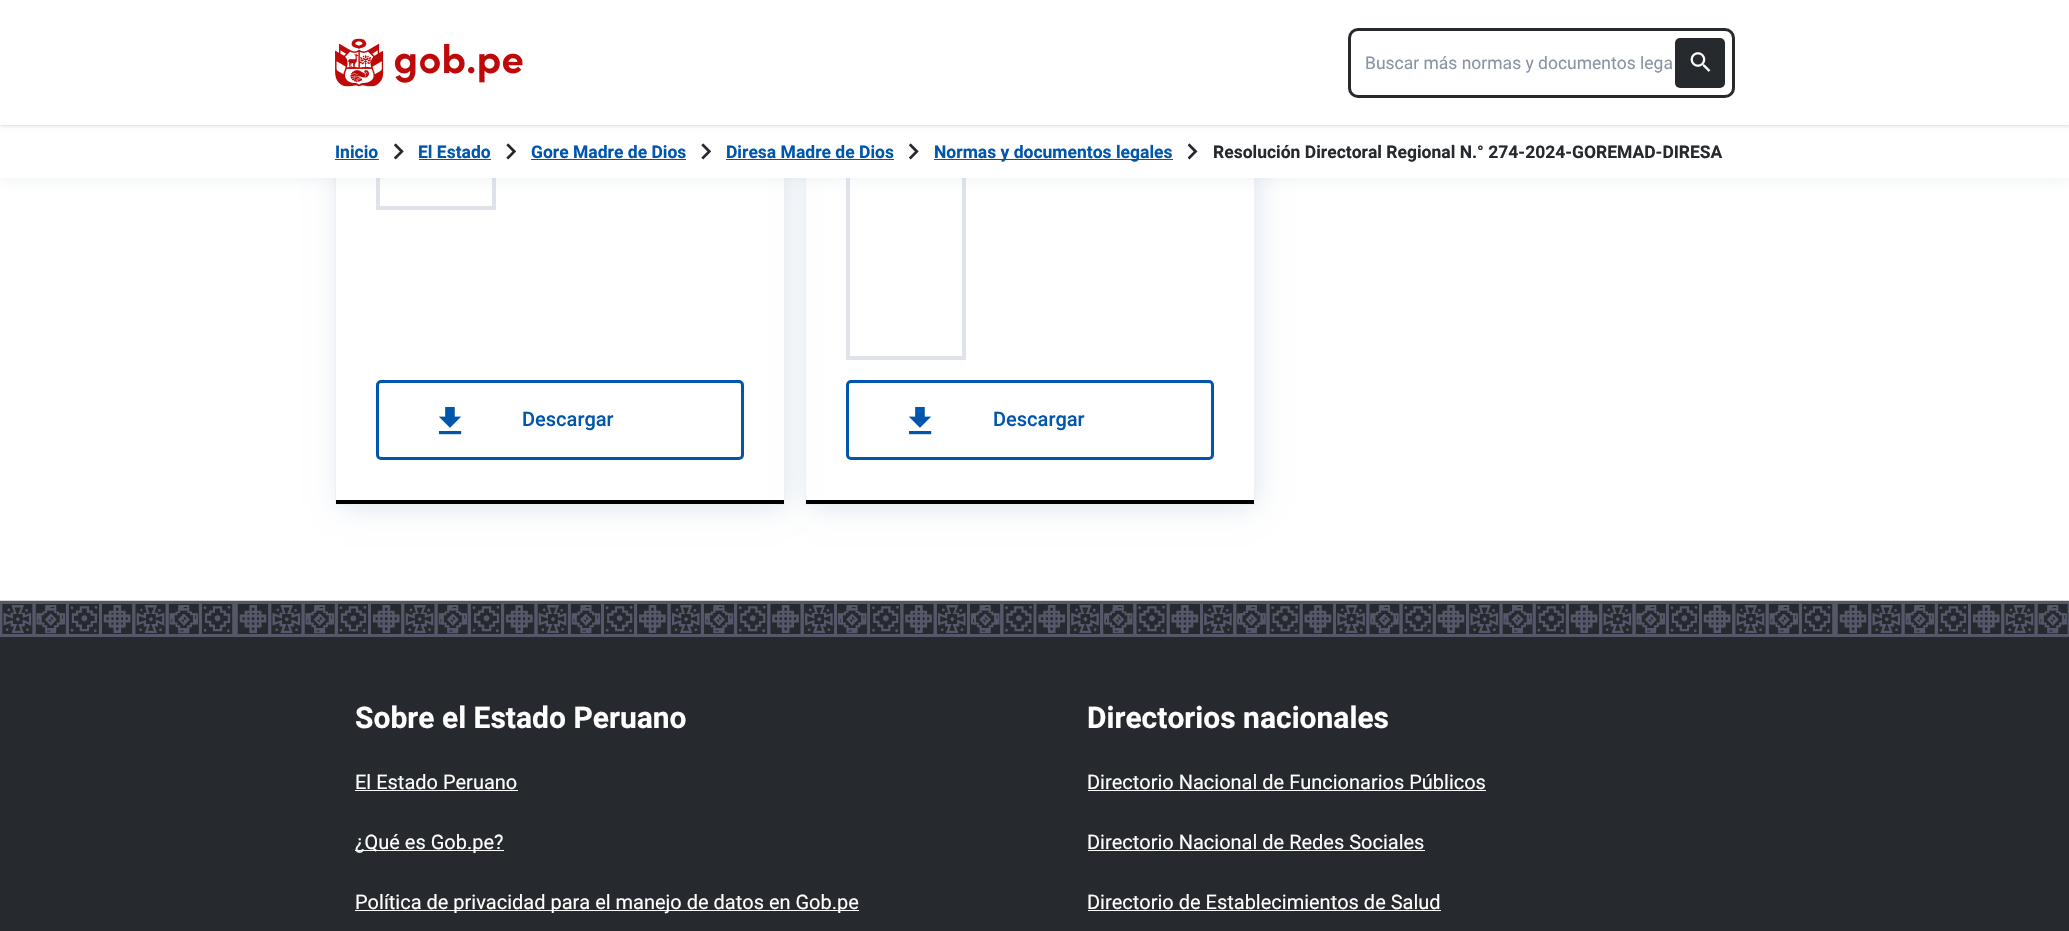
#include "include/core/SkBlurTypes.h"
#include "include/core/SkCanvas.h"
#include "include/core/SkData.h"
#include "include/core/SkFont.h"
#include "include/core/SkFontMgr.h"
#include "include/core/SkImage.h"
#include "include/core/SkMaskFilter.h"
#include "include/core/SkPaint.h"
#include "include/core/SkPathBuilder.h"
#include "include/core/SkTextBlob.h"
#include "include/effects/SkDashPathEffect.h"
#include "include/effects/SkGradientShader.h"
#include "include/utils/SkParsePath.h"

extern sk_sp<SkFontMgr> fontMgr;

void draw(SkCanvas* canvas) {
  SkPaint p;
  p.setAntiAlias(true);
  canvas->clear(SK_ColorWHITE);
  canvas->save();
  canvas->clipPath(SkPathBuilder(SkPathFillType::kEvenOdd).moveTo(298, 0).lineTo(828, 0).lineTo(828, 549).lineTo(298, 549).close().moveTo(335, -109).lineTo(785, -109).lineTo(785, 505).lineTo(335, 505).close().detach(), true);
  p.setColor(SkColorSetRGB(211, 224, 236));
  p.setMaskFilter(SkMaskFilter::MakeBlur(kNormal_SkBlurStyle, 14.5f));
  canvas->drawRect(SkRect::MakeLTRB(343, -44, 783, 504), p);
  p.setMaskFilter(nullptr);
  canvas->restore();
  p.setStyle(SkPaint::kStroke_Style);
  p.setStrokeWidth(1);
  p.setColor(SkColorSetRGB(238, 240, 244));
  canvas->drawRect(SkRect::MakeLTRB(335.5f, -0.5f, 784.5f, 504.5f), p);
  p.setStrokeWidth(4);
  p.setColor(SkColorSetRGB(222, 227, 234));
  canvas->drawRect(SkRect::MakeLTRB(378, -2, 494, 208), p);
  p.setStyle(SkPaint::kFill_Style);
  p.setColor(SK_ColorBLACK);
  canvas->drawRect(SkRect::MakeLTRB(336, 500, 784, 504), p);
  canvas->save();
  canvas->clipPath(SkPathBuilder(SkPathFillType::kEvenOdd).moveTo(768, 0).lineTo(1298, 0).lineTo(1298, 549).lineTo(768, 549).close().moveTo(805, -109).lineTo(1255, -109).lineTo(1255, 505).lineTo(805, 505).close().detach(), true);
  p.setColor(SkColorSetRGB(211, 224, 236));
  p.setMaskFilter(SkMaskFilter::MakeBlur(kNormal_SkBlurStyle, 14.5f));
  canvas->drawRect(SkRect::MakeLTRB(813, -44, 1253, 504), p);
  p.setMaskFilter(nullptr);
  canvas->restore();
  p.setStyle(SkPaint::kStroke_Style);
  p.setStrokeWidth(1);
  p.setColor(SkColorSetRGB(238, 240, 244));
  canvas->drawRect(SkRect::MakeLTRB(805.5f, -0.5f, 1254.5f, 504.5f), p);
  p.setStrokeWidth(4);
  p.setColor(SkColorSetRGB(222, 227, 234));
  canvas->drawRect(SkRect::MakeLTRB(848, -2, 964, 358), p);
  p.setStyle(SkPaint::kFill_Style);
  p.setColor(SkColorSetARGB(64, 190, 199, 211));
  p.setMaskFilter(SkMaskFilter::MakeBlur(kNormal_SkBlurStyle, 7));
  canvas->drawRect(SkRect::MakeLTRB(-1, 125, 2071, 180), p);
  p.setMaskFilter(nullptr);
  p.setColor(SK_ColorWHITE);
  canvas->drawRect(SkRect::MakeLTRB(0, 125, 2069, 178), p);
  p.setColor(SkColorSetARGB(26, 0, 0, 0));
  p.setMaskFilter(SkMaskFilter::MakeBlur(kNormal_SkBlurStyle, 1));
  canvas->drawRect(SkRect::MakeLTRB(1, 3, 2069, 125), p);
  p.setMaskFilter(nullptr);
  p.setMaskFilter(SkMaskFilter::MakeBlur(kNormal_SkBlurStyle, 2));
  canvas->drawRect(SkRect::MakeLTRB(0, 1, 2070, 126), p);
  p.setMaskFilter(nullptr);
  p.setColor(SK_ColorWHITE);
  canvas->drawRect(SkRect::MakeLTRB(0, 0, 2069, 125), p);
  canvas->drawImageRect(SkImages::DeferredFromEncodedData(SkData::MakeFromFileName("images/1.png")), SkRect::MakeLTRB(335, 38, 523, 87), SkSamplingOptions());
  p.setStyle(SkPaint::kStroke_Style);
  p.setStrokeWidth(3);
  p.setColor(SkColorSetRGB(38, 41, 46));
  canvas->drawRoundRect(SkRect::MakeLTRB(1349.5f, 29.5f, 1733.5f, 96.5f), 8.5f, 8.5f, p);
  p.setStyle(SkPaint::kFill_Style);
  canvas->drawRoundRect(SkRect::MakeLTRB(1675, 38, 1725, 88), 5, 5, p);
  canvas->drawImageRect(SkImages::DeferredFromEncodedData(SkData::MakeFromFileName("images/2.png")), SkRect::MakeLTRB(1690, 52, 1711, 72), SkSamplingOptions());
  p.setColor(SkColorSetRGB(0, 86, 172));
  canvas->drawRect(SkRect::MakeLTRB(335, 159, 379, 160), p);
  canvas->drawImageRect(SkImages::DeferredFromEncodedData(SkData::MakeFromFileName("images/3.png")), SkRect::MakeLTRB(394, 143, 404, 160), SkSamplingOptions());
  canvas->drawRect(SkRect::MakeLTRB(419, 159, 491, 160), p);
  canvas->drawImageRect(SkImages::DeferredFromEncodedData(SkData::MakeFromFileName("images/4.png")), SkRect::MakeLTRB(506, 143, 516, 160), SkSamplingOptions());
  canvas->drawRect(SkRect::MakeLTRB(531, 159, 686, 160), p);
  canvas->drawImageRect(SkImages::DeferredFromEncodedData(SkData::MakeFromFileName("images/4.png")), SkRect::MakeLTRB(701, 143, 711, 160), SkSamplingOptions());
  canvas->drawRect(SkRect::MakeLTRB(726, 159, 894, 160), p);
  canvas->drawImageRect(SkImages::DeferredFromEncodedData(SkData::MakeFromFileName("images/3.png")), SkRect::MakeLTRB(909, 143, 919, 160), SkSamplingOptions());
  canvas->drawRect(SkRect::MakeLTRB(934, 159, 1173, 160), p);
  canvas->drawImageRect(SkImages::DeferredFromEncodedData(SkData::MakeFromFileName("images/5.png")), SkRect::MakeLTRB(1188, 143, 1198, 160), SkSamplingOptions());
  p.setStyle(SkPaint::kStroke_Style);
  canvas->drawRoundRect(SkRect::MakeLTRB(377.5f, 381.5f, 742.5f, 458.5f), 3.5f, 3.5f, p);
  canvas->drawImageRect(SkImages::DeferredFromEncodedData(SkData::MakeFromFileName("images/6.png")), SkRect::MakeLTRB(439, 407, 462, 435), SkSamplingOptions());
  p.setStyle(SkPaint::kFill_Style);
  p.setColor(SK_ColorBLACK);
  canvas->drawRect(SkRect::MakeLTRB(806, 500, 1254, 504), p);
  p.setStyle(SkPaint::kStroke_Style);
  p.setColor(SkColorSetRGB(0, 86, 172));
  canvas->drawRoundRect(SkRect::MakeLTRB(847.5f, 381.5f, 1212.5f, 458.5f), 3.5f, 3.5f, p);
  canvas->drawImageRect(SkImages::DeferredFromEncodedData(SkData::MakeFromFileName("images/6.png")), SkRect::MakeLTRB(909, 407, 932, 435), SkSamplingOptions());
  p.setStyle(SkPaint::kFill_Style);
  p.setColor(SkColorSetRGB(38, 41, 46));
  canvas->drawRect(SkRect::MakeLTRB(0, 604, 2069, 931), p);
  canvas->drawImageRect(SkImages::DeferredFromEncodedData(SkData::MakeFromFileName("images/7.png")), SkRect::MakeLTRB(0, 600, 2069, 637), SkSamplingOptions());
  p.setColor(SK_ColorWHITE);
  canvas->drawRect(SkRect::MakeLTRB(355, 790, 518, 791), p);
  canvas->drawRect(SkRect::MakeLTRB(355, 850, 504, 851), p);
  canvas->drawRect(SkRect::MakeLTRB(355, 910, 859, 911), p);
  canvas->drawRect(SkRect::MakeLTRB(1088, 790, 1486, 791), p);
  canvas->drawRect(SkRect::MakeLTRB(1088, 850, 1425, 851), p);
  canvas->drawRect(SkRect::MakeLTRB(1088, 910, 1441, 911), p);
  SkFont font1(fontMgr->matchFamilyStyle("Roboto", SkFontStyle::Normal()), 17.5f);
  font1.setSubpixel(true);
  p.setColor(SkColorSetRGB(138, 148, 162));
  canvas->drawString("Buscar más normas y documentos lega", 1365, 69, font1, p);
  SkFont font2(fontMgr->matchFamilyStyle("Roboto", SkFontStyle::Bold()), 17.5f);
  font2.setSubpixel(true);
  p.setColor(SkColorSetRGB(0, 86, 172));
  canvas->drawString("Inicio", 335, 158, font2, p);
  canvas->drawString("El Estado", 418, 158, font2, p);
  canvas->drawString("Gore Madre de Dios", 531, 158, font2, p);
  canvas->drawString("Diresa Madre de Dios", 726, 158, font2, p);
  canvas->drawString("Normas y documentos legales", 934, 158, font2, p);
  p.setColor(SkColorSetRGB(38, 41, 46));
  canvas->drawString("Resolución Directoral Regional N.° 274-2024-GOREMAD-DIRESA", 1213, 158, font2, p);
  SkFont font3(fontMgr->matchFamilyStyle("Roboto", SkFontStyle(500, SkFontStyle::kNormal_Width, SkFontStyle::kUpright_Slant)), 20);
  font3.setSubpixel(true);
  p.setColor(SkColorSetRGB(0, 86, 172));
  canvas->drawString("Descargar", 522, 426, font3, p);
  canvas->drawString("Descargar", 993, 426, font3, p);
  SkFont font4(fontMgr->matchFamilyStyle("Roboto", SkFontStyle::Bold()), 30);
  font4.setSubpixel(true);
  p.setColor(SK_ColorWHITE);
  canvas->drawString("Sobre el Estado Peruano", 355, 728, font4, p);
  SkFont font5(fontMgr->matchFamilyStyle("Roboto", SkFontStyle::Normal()), 20);
  font5.setSubpixel(true);
  canvas->drawString("El Estado Peruano", 355, 789, font5, p);
  canvas->drawString("¿Qué es Gob.pe?", 355, 849, font5, p);
  canvas->drawString("Política de privacidad para el manejo de datos en Gob.pe", 355, 909, font5, p);
  canvas->drawString("Directorios nacionales", 1087, 728, font4, p);
  canvas->drawString("Directorio Nacional de Funcionarios Públicos", 1087, 789, font5, p);
  canvas->drawString("Directorio Nacional de Redes Sociales", 1087, 849, font5, p);
  canvas->drawString("Directorio de Establecimientos de Salud", 1087, 909, font5, p);
}
